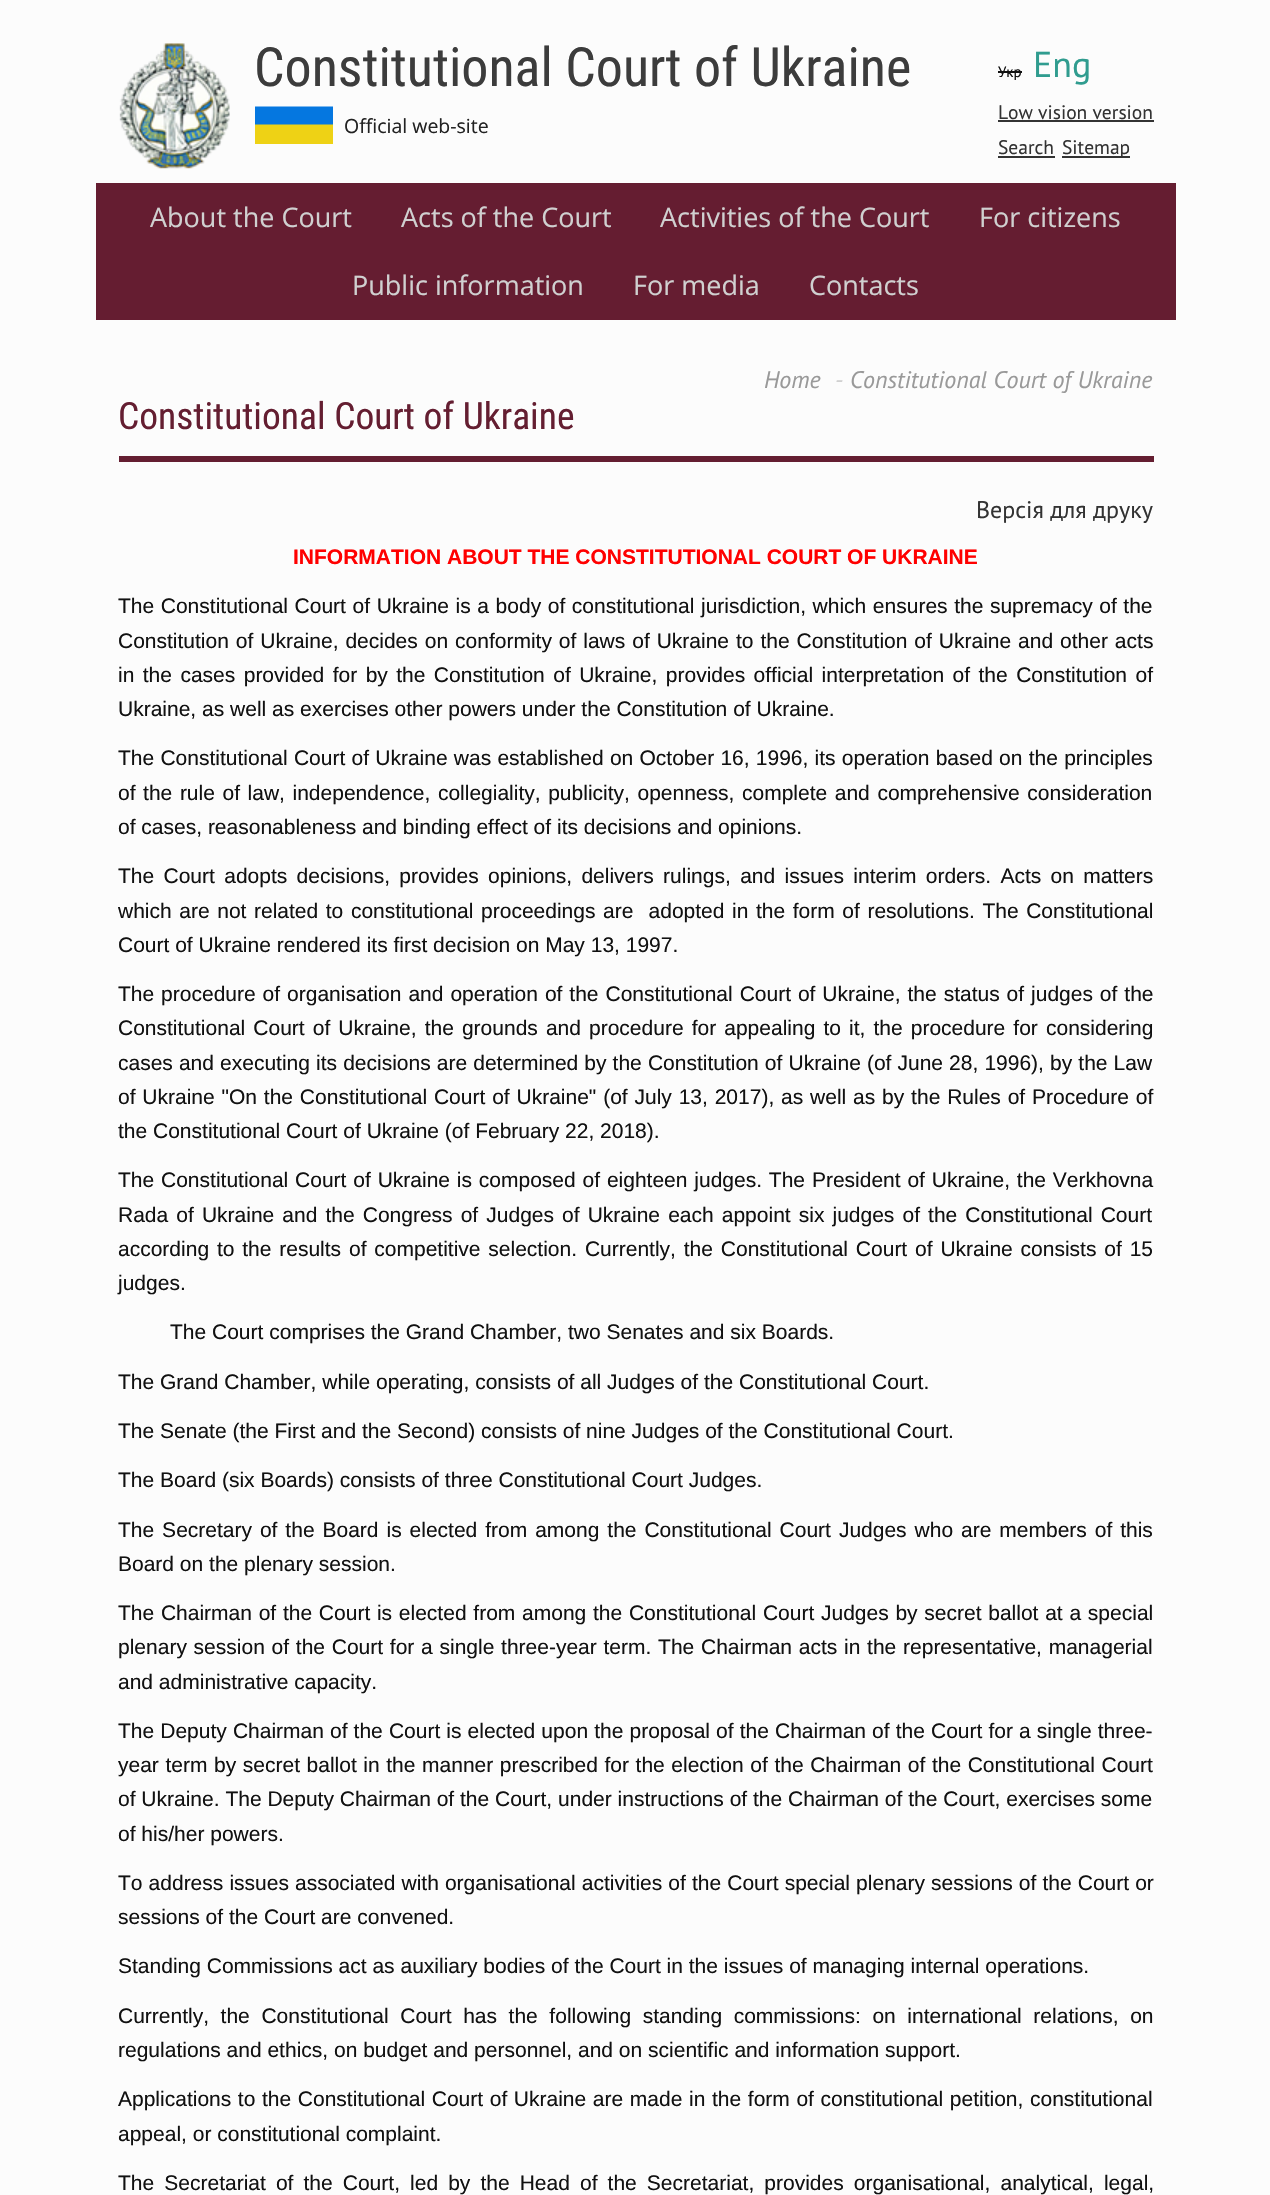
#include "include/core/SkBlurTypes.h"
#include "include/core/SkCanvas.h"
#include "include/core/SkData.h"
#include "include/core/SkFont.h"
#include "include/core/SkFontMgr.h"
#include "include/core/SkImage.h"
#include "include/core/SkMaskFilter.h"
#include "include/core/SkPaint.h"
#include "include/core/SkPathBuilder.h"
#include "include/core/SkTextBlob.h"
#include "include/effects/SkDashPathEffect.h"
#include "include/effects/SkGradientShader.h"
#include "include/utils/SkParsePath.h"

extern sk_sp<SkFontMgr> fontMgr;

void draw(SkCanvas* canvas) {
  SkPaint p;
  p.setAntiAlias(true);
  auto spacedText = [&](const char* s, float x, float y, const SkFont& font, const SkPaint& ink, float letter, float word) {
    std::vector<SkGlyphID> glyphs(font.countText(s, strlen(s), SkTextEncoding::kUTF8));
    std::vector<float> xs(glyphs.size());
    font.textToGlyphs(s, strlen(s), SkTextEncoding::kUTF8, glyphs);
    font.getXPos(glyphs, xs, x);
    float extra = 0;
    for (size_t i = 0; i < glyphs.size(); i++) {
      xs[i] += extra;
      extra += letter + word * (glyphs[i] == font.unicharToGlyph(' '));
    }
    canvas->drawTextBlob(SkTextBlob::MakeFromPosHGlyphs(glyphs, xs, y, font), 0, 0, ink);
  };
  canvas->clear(SkColorSetRGB(252, 252, 252));
  canvas->drawImageRect(SkImages::DeferredFromEncodedData(SkData::MakeFromFileName("images/1.png")), SkRect::MakeLTRB(119, 43, 230, 169), SkSamplingOptions());
  canvas->drawImageRect(SkImages::DeferredFromEncodedData(SkData::MakeFromFileName("images/2.png")), SkRect::MakeLTRB(255, 106, 333, 144), SkSamplingOptions());
  p.setColor(SkColorSetRGB(17, 17, 17));
  canvas->drawRect(SkRect::MakeLTRB(998, 71, 1022, 73), p);
  p.setColor(SkColorSetRGB(51, 51, 51));
  canvas->drawRect(SkRect::MakeLTRB(998, 120, 1154, 122), p);
  canvas->drawRect(SkRect::MakeLTRB(998, 156, 1055, 158), p);
  canvas->drawRect(SkRect::MakeLTRB(1062, 156, 1130, 158), p);
  p.setColor(SkColorSetRGB(101, 29, 49));
  canvas->drawRect(SkRect::MakeLTRB(96, 183, 1176, 320), p);
  p.setColor(SkColorSetRGB(100, 30, 49));
  canvas->drawRect(SkRect::MakeLTRB(119, 456, 1154, 462), p);
  SkFont font1(fontMgr->matchFamilyStyle("Roboto Condensed", SkFontStyle::Normal()), 54);
  font1.setSubpixel(true);
  p.setColor(SkColorSetRGB(60, 60, 60));
  canvas->drawString("Constitutional Court of Ukraine", 254, 86, font1, p);
  SkFont font2(fontMgr->matchFamilyStyle("Open Sans", SkFontStyle::Normal()), 19.5f);
  font2.setSubpixel(true);
  p.setColor(SkColorSetRGB(34, 34, 34));
  canvas->drawString("Official web-site", 344, 133, font2, p);
  SkFont font3(fontMgr->matchFamilyStyle("PT Sans", SkFontStyle::Normal()), 15);
  font3.setSubpixel(true);
  p.setColor(SkColorSetRGB(17, 17, 17));
  canvas->drawString("Укр", 998, 77, font3, p);
  SkFont font4(fontMgr->matchFamilyStyle("PT Sans", SkFontStyle::Normal()), 36);
  font4.setSubpixel(true);
  p.setColor(SkColorSetRGB(48, 156, 143));
  canvas->drawString("Eng", 1033, 77, font4, p);
  SkFont font5(fontMgr->matchFamilyStyle("PT Sans", SkFontStyle::Normal()), 19.5f);
  font5.setSubpixel(true);
  p.setColor(SkColorSetRGB(51, 51, 51));
  canvas->drawString("Low vision version", 998, 119, font5, p);
  canvas->drawString("Search", 998, 154, font5, p);
  canvas->drawString("Sitemap", 1062, 154, font5, p);
  SkFont font6(fontMgr->matchFamilyStyle("Open Sans", SkFontStyle::Normal()), 27);
  font6.setSubpixel(true);
  p.setColor(SkColorSetRGB(208, 208, 208));
  canvas->drawString("About the Court", 150, 227, font6, p);
  canvas->drawString("Acts of the Court", 401, 227, font6, p);
  canvas->drawString("Activities of the Court", 660, 227, font6, p);
  canvas->drawString("For citizens", 979, 227, font6, p);
  canvas->drawString("Public information", 352, 295, font6, p);
  canvas->drawString("For media", 633, 295, font6, p);
  canvas->drawString("Contacts", 809, 295, font6, p);
  SkFont font7(fontMgr->matchFamilyStyle("PT Sans", SkFontStyle::Italic()), 24);
  font7.setSubpixel(true);
  p.setColor(SkColorSetRGB(153, 153, 153));
  canvas->drawString("Home", 764, 388, font7, p);
  p.setColor(SkColorSetRGB(208, 208, 208));
  canvas->drawString("-", 835, 388, font7, p);
  p.setColor(SkColorSetRGB(153, 153, 153));
  canvas->drawString("Constitutional Court of Ukraine", 850, 388, font7, p);
  SkFont font8(fontMgr->matchFamilyStyle("Roboto Condensed", SkFontStyle::Normal()), 37.5f);
  font8.setSubpixel(true);
  p.setColor(SkColorSetRGB(100, 30, 49));
  canvas->drawString("Constitutional Court of Ukraine", 118, 429, font8, p);
  SkFont font9(fontMgr->matchFamilyStyle("PT Sans", SkFontStyle::Normal()), 24);
  font9.setSubpixel(true);
  p.setColor(SkColorSetRGB(51, 51, 51));
  canvas->drawString("Версія для друку", 976, 518, font9, p);
  SkFont font10(fontMgr->matchFamilyStyle("Liberation Sans", SkFontStyle::Bold()), 21);
  font10.setSubpixel(true);
  p.setColor(SkColorSetRGB(255, 0, 0));
  canvas->drawString("INFORMATION ABOUT THE CONSTITUTIONAL COURT OF UKRAINE", 293, 564, font10, p);
  SkFont font11(fontMgr->matchFamilyStyle("Liberation Sans", SkFontStyle::Normal()), 21);
  font11.setSubpixel(true);
  p.setColor(SkColorSetRGB(17, 17, 17));
  spacedText("The Constitutional Court of Ukraine is a body of constitutional jurisdiction, which ensures the supremacy of the", 118, 613, font11, p, 0, 0.75f);
  spacedText("Constitution of Ukraine, decides on conformity of laws of Ukraine to the Constitution of Ukraine and other acts", 118, 648, font11, p, 0, 1.1f);
  spacedText("in the cases provided for by the Constitution of Ukraine, provides official interpretation of the Constitution of", 118, 682, font11, p, 0, 2.6f);
  canvas->drawString("Ukraine, as well as exercises other powers under the Constitution of Ukraine.", 118, 716, font11, p);
  spacedText("The Constitutional Court of Ukraine was established on October 16, 1996, its operation based on the principles", 118, 765, font11, p, 0, 0.4f);
  spacedText("of the rule of law, independence, collegiality, publicity, openness, complete and comprehensive consideration", 118, 800, font11, p, 0, 1.75f);
  canvas->drawString("of cases, reasonableness and binding effect of its decisions and opinions.", 118, 834, font11, p);
  spacedText("The Court adopts decisions, provides opinions, delivers rulings, and issues interim orders. Acts on matters", 118, 883, font11, p, 0, 3.5f);
  spacedText("which are not related to constitutional proceedings are  adopted in the form of resolutions. The Constitutional", 118, 918, font11, p, 0, 1.75f);
  canvas->drawString("Court of Ukraine rendered its first decision on May 13, 1997.", 118, 952, font11, p);
  spacedText("The procedure of organisation and operation of the Constitutional Court of Ukraine, the status of judges of the", 118, 1001, font11, p, 0, 1.1f);
  spacedText("Constitutional Court of Ukraine, the grounds and procedure for appealing to it, the procedure for considering", 118, 1035, font11, p, 0, 2.25f);
  spacedText("cases and executing its decisions are determined by the Constitution of Ukraine (of June 28, 1996), by the Law", 118, 1070, font11, p, 0, 0.25f);
  spacedText("of Ukraine \"On the Constitutional Court of Ukraine\" (of July 13, 2017), as well as by the Rules of Procedure of", 118, 1104, font11, p, 0, 1);
  canvas->drawString("the Constitutional Court of Ukraine (of February 22, 2018).", 118, 1138, font11, p);
  spacedText("The Constitutional Court of Ukraine is composed of eighteen judges. The President of Ukraine, the Verkhovna", 118, 1187, font11, p, 0, 1);
  spacedText("Rada of Ukraine and the Congress of Judges of Ukraine each appoint six judges of the Constitutional Court", 118, 1222, font11, p, 0, 2.25f);
  spacedText("according to the results of competitive selection. Currently, the Constitutional Court of Ukraine consists of 15", 118, 1256, font11, p, 0, 2);
  canvas->drawString("judges.", 118, 1290, font11, p);
  canvas->drawString("The Court comprises the Grand Chamber, two Senates and six Boards.", 170, 1339, font11, p);
  canvas->drawString("The Grand Chamber, while operating, consists of all Judges of the Constitutional Court.", 118, 1389, font11, p);
  canvas->drawString("The Senate (the First and the Second) consists of nine Judges of the Constitutional Court.", 118, 1438, font11, p);
  canvas->drawString("The Board (six Boards) consists of three Constitutional Court Judges.", 118, 1487, font11, p);
  spacedText("The Secretary of the Board is elected from among the Constitutional Court Judges who are members of this", 118, 1537, font11, p, 0, 2.1f);
  canvas->drawString("Board on the plenary session.", 118, 1571, font11, p);
  spacedText("The Chairman of the Court is elected from among the Constitutional Court Judges by secret ballot at a special", 118, 1620, font11, p, 0, 0.9f);
  spacedText("plenary session of the Court for a single three-year term. The Chairman acts in the representative, managerial", 118, 1654, font11, p, 0, 0.9f);
  canvas->drawString("and administrative capacity.", 118, 1689, font11, p);
  spacedText("The Deputy Chairman of the Court is elected upon the proposal of the Chairman of the Court for a single three-", 118, 1738, font11, p, 0, 0.25f);
  spacedText("year term by secret ballot in the manner prescribed for the election of the Chairman of the Constitutional Court", 118, 1772, font11, p, 0, 0.75f);
  canvas->drawString("of Ukraine. The Deputy Chairman of the Court, under instructions of the Chairman of the Court, exercises some", 118, 1806, font11, p);
  canvas->drawString("of his/her powers.", 118, 1841, font11, p);
  spacedText("To address issues associated with organisational activities of the Court special plenary sessions of the Court or", 118, 1890, font11, p, 0, 0.25f);
  canvas->drawString("sessions of the Court are convened.", 118, 1924, font11, p);
  canvas->drawString("Standing Commissions act as auxiliary bodies of the Court in the issues of managing internal operations.", 118, 1973, font11, p);
  spacedText("Currently, the Constitutional Court has the following standing commissions: on international relations, on", 118, 2023, font11, p, 0, 5.75f);
  canvas->drawString("regulations and ethics, on budget and personnel, and on scientific and information support.", 118, 2057, font11, p);
  spacedText("Applications to the Constitutional Court of Ukraine are made in the form of constitutional petition, constitutional", 118, 2106, font11, p, 0, 0.8f);
  canvas->drawString("appeal, or constitutional complaint.", 118, 2141, font11, p);
  spacedText("The Secretariat of the Court, led by the Head of the Secretariat, provides organisational, analytical, legal,", 118, 2190, font11, p, 0, 4.25f);
}
